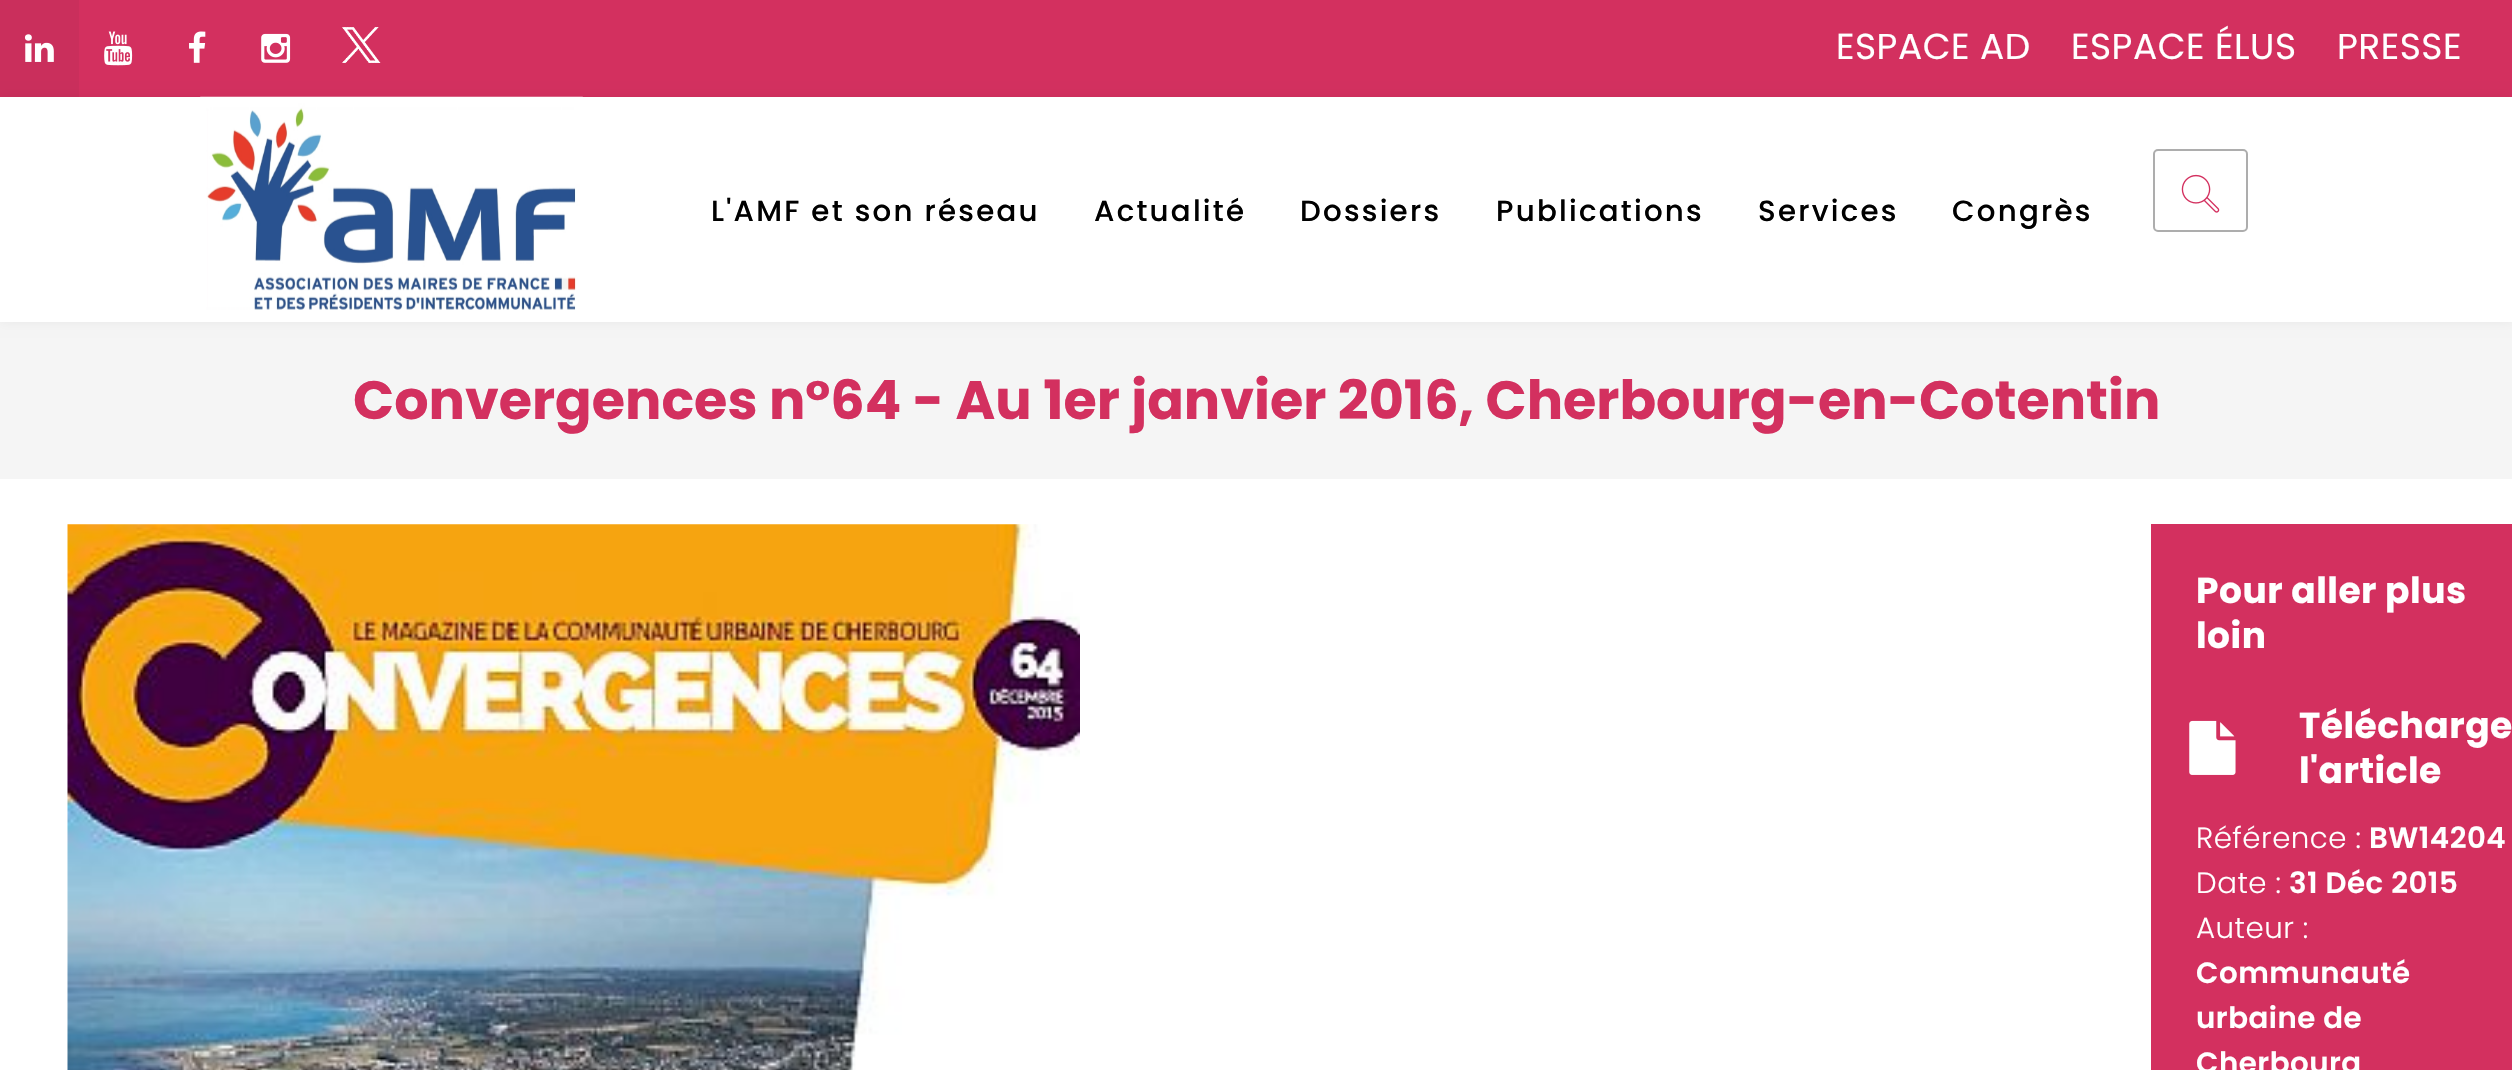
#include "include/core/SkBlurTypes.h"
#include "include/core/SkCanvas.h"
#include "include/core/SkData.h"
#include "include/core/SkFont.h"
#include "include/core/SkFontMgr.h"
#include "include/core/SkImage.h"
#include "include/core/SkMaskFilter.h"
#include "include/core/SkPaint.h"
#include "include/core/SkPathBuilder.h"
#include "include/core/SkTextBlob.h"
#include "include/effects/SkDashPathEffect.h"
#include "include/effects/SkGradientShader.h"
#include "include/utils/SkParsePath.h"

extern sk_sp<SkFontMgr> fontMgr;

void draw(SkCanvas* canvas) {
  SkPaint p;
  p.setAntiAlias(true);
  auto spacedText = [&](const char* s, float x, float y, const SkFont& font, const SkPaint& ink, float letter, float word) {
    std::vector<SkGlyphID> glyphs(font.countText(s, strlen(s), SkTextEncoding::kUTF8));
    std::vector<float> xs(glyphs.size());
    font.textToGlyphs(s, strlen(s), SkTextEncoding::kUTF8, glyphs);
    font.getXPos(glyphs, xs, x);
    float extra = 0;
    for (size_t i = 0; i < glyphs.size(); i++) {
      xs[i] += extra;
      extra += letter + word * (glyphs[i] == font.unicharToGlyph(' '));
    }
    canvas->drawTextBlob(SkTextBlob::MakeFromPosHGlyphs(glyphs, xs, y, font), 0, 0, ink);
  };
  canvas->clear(SK_ColorWHITE);
  p.setColor(SkColorSetRGB(211, 48, 95));
  canvas->drawRect(SkRect::MakeLTRB(79, 0, 2512, 97), p);
  p.setColor(SkColorSetRGB(202, 47, 92));
  canvas->drawRect(SkRect::MakeLTRB(0, 0, 79, 97), p);
  canvas->drawImageRect(SkImages::DeferredFromEncodedData(SkData::MakeFromFileName("images/1.png")), SkRect::MakeLTRB(24, 34, 54, 62), SkSamplingOptions());
  canvas->drawImageRect(SkImages::DeferredFromEncodedData(SkData::MakeFromFileName("images/2.png")), SkRect::MakeLTRB(104, 31, 133, 66), SkSamplingOptions());
  canvas->drawImageRect(SkImages::DeferredFromEncodedData(SkData::MakeFromFileName("images/3.png")), SkRect::MakeLTRB(189, 31, 206, 63), SkSamplingOptions());
  canvas->drawImageRect(SkImages::DeferredFromEncodedData(SkData::MakeFromFileName("images/4.png")), SkRect::MakeLTRB(261, 33, 291, 63), SkSamplingOptions());
  canvas->drawImageRect(SkImages::DeferredFromEncodedData(SkData::MakeFromFileName("images/5.png")), SkRect::MakeLTRB(342, 27, 381, 63), SkSamplingOptions());
  p.setColor(SkColorSetRGB(245, 245, 245));
  canvas->drawRect(SkRect::MakeLTRB(0, 322, 2512, 479), p);
  p.setColor(SkColorSetARGB(13, 0, 0, 0));
  p.setMaskFilter(SkMaskFilter::MakeBlur(kNormal_SkBlurStyle, 5.5f));
  canvas->drawRect(SkRect::MakeLTRB(0, 97, 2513, 322), p);
  p.setMaskFilter(nullptr);
  p.setColor(SK_ColorWHITE);
  canvas->drawRect(SkRect::MakeLTRB(0, 97, 2512, 322), p);
  canvas->drawImageRect(SkImages::DeferredFromEncodedData(SkData::MakeFromFileName("images/6.png")), SkRect::MakeLTRB(200, 96, 583, 310), SkSamplingOptions());
  p.setStyle(SkPaint::kStroke_Style);
  p.setStrokeWidth(2);
  p.setColor(SkColorSetRGB(173, 173, 173));
  canvas->drawRoundRect(SkRect::MakeLTRB(2154, 150, 2247, 231), 4, 4, p);
  canvas->drawImageRect(SkImages::DeferredFromEncodedData(SkData::MakeFromFileName("images/7.png")), SkRect::MakeLTRB(2181, 174, 2220, 213), SkSamplingOptions());
  canvas->drawImageRect(SkImages::DeferredFromEncodedData(SkData::MakeFromFileName("images/8.png")), SkRect::MakeLTRB(67, 524, 1080, 1070), SkSamplingOptions());
  p.setStyle(SkPaint::kFill_Style);
  p.setColor(SkColorSetRGB(211, 48, 95));
  canvas->drawRect(SkRect::MakeLTRB(2151, 524, 2512, 1070), p);
  canvas->drawImageRect(SkImages::DeferredFromEncodedData(SkData::MakeFromFileName("images/9.png")), SkRect::MakeLTRB(2189, 720, 2236, 775), SkSamplingOptions());
  SkFont font1(fontMgr->matchFamilyStyle("Poppins", SkFontStyle::Normal()), 36);
  font1.setSubpixel(true);
  p.setColor(SK_ColorWHITE);
  spacedText("ESPACE AD", 1836, 59, font1, p, 0.5f, 0);
  spacedText("ESPACE ÉLUS", 2071, 59, font1, p, 0.5f, 0);
  spacedText("PRESSE", 2337, 59, font1, p, 0.5f, 0);
  SkFont font2(fontMgr->matchFamilyStyle("Poppins", SkFontStyle(500, SkFontStyle::kNormal_Width, SkFontStyle::kUpright_Slant)), 29.25f);
  font2.setSubpixel(true);
  p.setColor(SK_ColorBLACK);
  spacedText("L'AMF et son réseau", 711, 221, font2, p, 2.25f, 0);
  spacedText("Actualité", 1094, 221, font2, p, 2.25f, 0);
  spacedText("Dossiers", 1300, 221, font2, p, 2.25f, 0);
  spacedText("Publications", 1496, 221, font2, p, 2.25f, 0);
  spacedText("Services", 1758, 221, font2, p, 2.25f, 0);
  spacedText("Congrès", 1952, 221, font2, p, 2.25f, 0);
  SkFont font3(fontMgr->matchFamilyStyle("Poppins", SkFontStyle::Bold()), 54);
  font3.setSubpixel(true);
  p.setColor(SkColorSetRGB(211, 48, 95));
  canvas->drawString("Convergences n°64 - Au 1er janvier 2016, Cherbourg-en-Cotentin", 353, 419, font3, p);
  SkFont font4(fontMgr->matchFamilyStyle("Poppins", SkFontStyle::Bold()), 36);
  font4.setSubpixel(true);
  p.setColor(SK_ColorWHITE);
  spacedText("Pour aller plus", 2196, 603, font4, p, 0.5f, 0);
  spacedText("loin", 2196, 648, font4, p, 0.5f, 0);
  spacedText("Télécharge", 2299, 738, font4, p, 0.5f, 0);
  spacedText("l'article", 2299, 783, font4, p, 0.5f, 0);
  SkFont font5(fontMgr->matchFamilyStyle("Poppins", SkFontStyle(300, SkFontStyle::kNormal_Width, SkFontStyle::kUpright_Slant)), 29.25f);
  font5.setSubpixel(true);
  spacedText("Référence :", 2196, 848, font5, p, 0.5f, 0);
  SkFont font6(fontMgr->matchFamilyStyle("Poppins", SkFontStyle(600, SkFontStyle::kNormal_Width, SkFontStyle::kUpright_Slant)), 29.25f);
  font6.setSubpixel(true);
  spacedText("BW14204", 2369, 848, font6, p, 0.5f, 0);
  spacedText("Date :", 2196, 893, font5, p, 0.5f, 0);
  spacedText("31 Déc 2015", 2289, 893, font6, p, 0.5f, 0);
  spacedText("Auteur :", 2196, 938, font5, p, 0.5f, 0);
  spacedText("Communauté", 2196, 983, font6, p, 0.5f, 0);
  spacedText("urbaine de", 2196, 1028, font6, p, 0.5f, 0);
  spacedText("Cherbourg", 2196, 1073, font6, p, 0.5f, 0);
}
